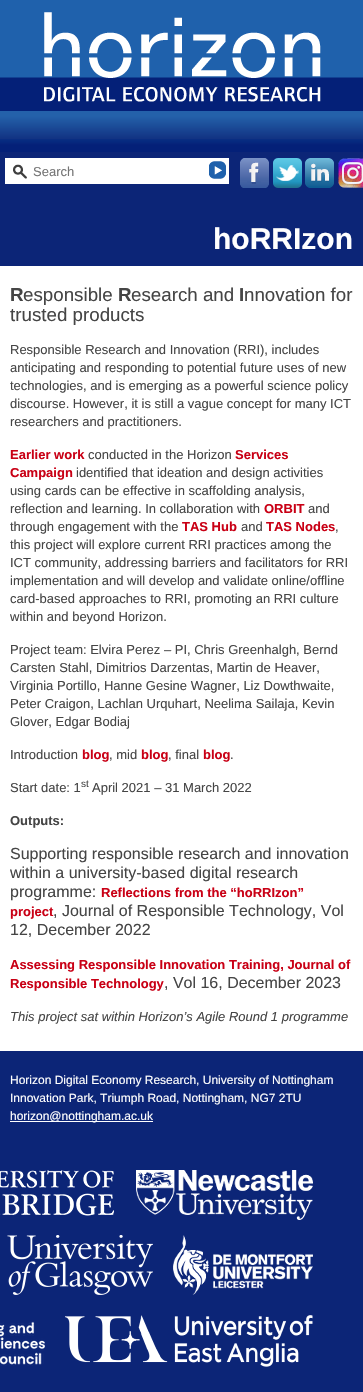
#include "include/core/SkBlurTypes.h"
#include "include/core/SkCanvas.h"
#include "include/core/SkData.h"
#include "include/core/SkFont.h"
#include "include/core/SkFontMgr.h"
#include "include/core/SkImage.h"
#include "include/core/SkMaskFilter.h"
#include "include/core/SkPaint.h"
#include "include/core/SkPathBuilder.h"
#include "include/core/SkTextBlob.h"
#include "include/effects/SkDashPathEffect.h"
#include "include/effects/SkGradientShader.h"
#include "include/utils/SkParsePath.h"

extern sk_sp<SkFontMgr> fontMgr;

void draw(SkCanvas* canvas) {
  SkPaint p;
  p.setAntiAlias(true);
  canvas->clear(SK_ColorWHITE);
  canvas->drawImageRect(SkImages::DeferredFromEncodedData(SkData::MakeFromFileName("images/1.png")), SkRect::MakeLTRB(0, 0, 363, 152), SkSamplingOptions());
  p.setColor(SkColorSetRGB(12, 37, 119));
  canvas->drawRect(SkRect::MakeLTRB(0, 152, 363, 266), p);
  canvas->drawImageRect(SkImages::DeferredFromEncodedData(SkData::MakeFromFileName("images/2.png")), SkRect::MakeLTRB(44, 12, 321, 102), SkSamplingOptions());
  canvas->drawImageRect(SkImages::DeferredFromEncodedData(SkData::MakeFromFileName("images/3.png")), SkRect::MakeLTRB(0, 111, 363, 139), SkSamplingOptions());
  p.setColor(SK_ColorWHITE);
  canvas->drawRect(SkRect::MakeLTRB(5, 158, 229, 184), p);
  canvas->drawImageRect(SkImages::DeferredFromEncodedData(SkData::MakeFromFileName("images/4.png")), SkRect::MakeLTRB(13, 164, 27, 179), SkSamplingOptions());
  canvas->drawImageRect(SkImages::DeferredFromEncodedData(SkData::MakeFromFileName("images/5.png")), SkRect::MakeLTRB(209, 161, 226, 179), SkSamplingOptions());
  canvas->drawImageRect(SkImages::DeferredFromEncodedData(SkData::MakeFromFileName("images/6.png")), SkRect::MakeLTRB(240, 158, 269, 188), SkSamplingOptions());
  canvas->drawImageRect(SkImages::DeferredFromEncodedData(SkData::MakeFromFileName("images/7.png")), SkRect::MakeLTRB(273, 158, 302, 188), SkSamplingOptions());
  canvas->drawImageRect(SkImages::DeferredFromEncodedData(SkData::MakeFromFileName("images/8.png")), SkRect::MakeLTRB(305, 158, 334, 188), SkSamplingOptions());
  canvas->drawImageRect(SkImages::DeferredFromEncodedData(SkData::MakeFromFileName("images/9.png")), SkRect::MakeLTRB(338, 158, 363, 188), SkSamplingOptions());
  p.setColor(SkColorSetRGB(12, 37, 119));
  canvas->drawRect(SkRect::MakeLTRB(0, 1051, 363, 1392), p);
  p.setColor(SK_ColorWHITE);
  canvas->drawRect(SkRect::MakeLTRB(10, 1121, 153, 1122), p);
  canvas->drawImageRect(SkImages::DeferredFromEncodedData(SkData::MakeFromFileName("images/10.png")), SkRect::MakeLTRB(0, 1170, 114, 1216), SkSamplingOptions());
  canvas->drawImageRect(SkImages::DeferredFromEncodedData(SkData::MakeFromFileName("images/11.png")), SkRect::MakeLTRB(136, 1170, 313, 1220), SkSamplingOptions());
  canvas->drawImageRect(SkImages::DeferredFromEncodedData(SkData::MakeFromFileName("images/12.png")), SkRect::MakeLTRB(7, 1235, 153, 1295), SkSamplingOptions());
  canvas->drawImageRect(SkImages::DeferredFromEncodedData(SkData::MakeFromFileName("images/13.png")), SkRect::MakeLTRB(173, 1235, 313, 1295), SkSamplingOptions());
  canvas->drawImageRect(SkImages::DeferredFromEncodedData(SkData::MakeFromFileName("images/14.png")), SkRect::MakeLTRB(0, 1321, 45, 1366), SkSamplingOptions());
  canvas->drawImageRect(SkImages::DeferredFromEncodedData(SkData::MakeFromFileName("images/15.png")), SkRect::MakeLTRB(65, 1315, 313, 1367), SkSamplingOptions());
  SkFont font1(fontMgr->matchFamilyStyle("Liberation Sans", SkFontStyle::Normal()), 13);
  font1.setSubpixel(true);
  p.setColor(SkColorSetRGB(117, 117, 117));
  canvas->drawString("Search", 33, 176, font1, p);
  SkFont font2(fontMgr->matchFamilyStyle("Liberation Sans", SkFontStyle::Bold()), 30);
  font2.setSubpixel(true);
  p.setColor(SK_ColorWHITE);
  canvas->drawString("hoRRIzon", 213, 249, font2, p);
  SkFont font3(fontMgr->matchFamilyStyle("Liberation Sans", SkFontStyle::Bold()), 18.75f);
  font3.setSubpixel(true);
  p.setColor(SkColorSetRGB(69, 69, 69));
  canvas->drawString("R", 10, 301, font3, p);
  SkFont font4(fontMgr->matchFamilyStyle("Liberation Sans", SkFontStyle::Normal()), 18.75f);
  font4.setSubpixel(true);
  canvas->drawString("esponsible", 23, 301, font4, p);
  canvas->drawString("R", 118, 301, font3, p);
  canvas->drawString("esearch and", 131, 301, font4, p);
  canvas->drawString("I", 239, 301, font3, p);
  canvas->drawString("nnovation for", 244, 301, font4, p);
  canvas->drawString("trusted products", 10, 321, font4, p);
  canvas->drawString("Responsible Research and Innovation (RRI), includes", 10, 354, font1, p);
  canvas->drawString("anticipating and responding to potential future uses of new", 10, 372, font1, p);
  canvas->drawString("technologies, and is emerging as a powerful science policy", 10, 390, font1, p);
  canvas->drawString("discourse. However, it is still a vague concept for many ICT", 10, 408, font1, p);
  canvas->drawString("researchers and practitioners.", 10, 426, font1, p);
  SkFont font5(fontMgr->matchFamilyStyle("Liberation Sans", SkFontStyle::Bold()), 13);
  font5.setSubpixel(true);
  p.setColor(SkColorSetRGB(201, 0, 21));
  canvas->drawString("Earlier work", 10, 459, font5, p);
  p.setColor(SkColorSetRGB(69, 69, 69));
  canvas->drawString("conducted in the Horizon", 88, 459, font1, p);
  p.setColor(SkColorSetRGB(201, 0, 21));
  canvas->drawString("Services", 235, 459, font5, p);
  canvas->drawString("Campaign", 10, 477, font5, p);
  p.setColor(SkColorSetRGB(69, 69, 69));
  canvas->drawString("identified that ideation and design activities", 76, 477, font1, p);
  canvas->drawString("using cards can be effective in scaffolding analysis,", 10, 495, font1, p);
  canvas->drawString("reflection and learning. In collaboration with", 10, 513, font1, p);
  p.setColor(SkColorSetRGB(201, 0, 21));
  canvas->drawString("ORBIT", 264, 513, font5, p);
  p.setColor(SkColorSetRGB(69, 69, 69));
  canvas->drawString("and", 308, 513, font1, p);
  canvas->drawString("through engagement with the", 10, 531, font1, p);
  p.setColor(SkColorSetRGB(201, 0, 21));
  canvas->drawString("TAS Hub", 182, 531, font5, p);
  p.setColor(SkColorSetRGB(69, 69, 69));
  canvas->drawString("and", 241, 531, font1, p);
  p.setColor(SkColorSetRGB(201, 0, 21));
  canvas->drawString("TAS Nodes", 266, 531, font5, p);
  p.setColor(SkColorSetRGB(69, 69, 69));
  canvas->drawString(",", 335, 531, font1, p);
  canvas->drawString("this project will explore current RRI practices among the", 10, 549, font1, p);
  canvas->drawString("ICT community, addressing barriers and facilitators for RRI", 10, 567, font1, p);
  canvas->drawString("implementation and will develop and validate online/offline", 10, 585, font1, p);
  canvas->drawString("card-based approaches to RRI, promoting an RRI culture", 10, 603, font1, p);
  canvas->drawString("within and beyond Horizon.", 10, 621, font1, p);
  canvas->drawString("Project team: Elvira Perez – PI, Chris Greenhalgh, Bernd", 10, 654, font1, p);
  canvas->drawString("Carsten Stahl, Dimitrios Darzentas, Martin de Heaver,", 10, 672, font1, p);
  canvas->drawString("Virginia Portillo, Hanne Gesine Wagner, Liz Dowthwaite,", 10, 690, font1, p);
  canvas->drawString("Peter Craigon, Lachlan Urquhart, Neelima Sailaja, Kevin", 10, 708, font1, p);
  canvas->drawString("Glover, Edgar Bodiaj", 10, 726, font1, p);
  canvas->drawString("Introduction", 10, 759, font1, p);
  p.setColor(SkColorSetRGB(201, 0, 21));
  canvas->drawString("blog", 82, 759, font5, p);
  p.setColor(SkColorSetRGB(69, 69, 69));
  canvas->drawString(", mid", 109, 759, font1, p);
  p.setColor(SkColorSetRGB(201, 0, 21));
  canvas->drawString("blog", 141, 759, font5, p);
  p.setColor(SkColorSetRGB(69, 69, 69));
  canvas->drawString(", final", 168, 759, font1, p);
  p.setColor(SkColorSetRGB(201, 0, 21));
  canvas->drawString("blog", 203, 759, font5, p);
  p.setColor(SkColorSetRGB(69, 69, 69));
  canvas->drawString(".", 230, 759, font1, p);
  canvas->drawString("Start date: 1", 10, 792, font1, p);
  SkFont font6(fontMgr->matchFamilyStyle("Liberation Sans", SkFontStyle::Normal()), 10);
  font6.setSubpixel(true);
  canvas->drawString("st", 81, 787, font6, p);
  canvas->drawString("April 2021 – 31 March 2022", 92, 792, font1, p);
  canvas->drawString("Outputs:", 10, 825, font5, p);
  SkFont font7(fontMgr->matchFamilyStyle("Liberation Sans", SkFontStyle::Normal()), 16);
  font7.setSubpixel(true);
  canvas->drawString("Supporting responsible research and innovation", 10, 859, font7, p);
  canvas->drawString("within a university-based digital research", 10, 878, font7, p);
  canvas->drawString("programme:", 10, 897, font7, p);
  p.setColor(SkColorSetRGB(201, 0, 21));
  canvas->drawString("Reflections from the “hoRRIzon”", 101, 897, font5, p);
  canvas->drawString("project", 10, 916, font5, p);
  p.setColor(SkColorSetRGB(69, 69, 69));
  canvas->drawString(", Journal of Responsible Technology, Vol", 53, 916, font7, p);
  canvas->drawString("12, December 2022", 10, 935, font7, p);
  p.setColor(SkColorSetRGB(201, 0, 21));
  canvas->drawString("Assessing Responsible Innovation Training, Journal of", 10, 969, font5, p);
  canvas->drawString("Responsible Technology", 10, 988, font5, p);
  p.setColor(SkColorSetRGB(69, 69, 69));
  canvas->drawString(", Vol 16, December 2023", 164, 988, font7, p);
  SkFont font8(fontMgr->matchFamilyStyle("Liberation Sans", SkFontStyle::Italic()), 13);
  font8.setSubpixel(true);
  canvas->drawString("This project sat within Horizon’s Agile Round 1 programme", 10, 1021, font8, p);
  SkFont font9(fontMgr->matchFamilyStyle("Liberation Sans", SkFontStyle::Normal()), 12);
  font9.setSubpixel(true);
  p.setColor(SK_ColorWHITE);
  canvas->drawString("Horizon Digital Economy Research, University of Nottingham", 10, 1084, font9, p);
  canvas->drawString("Innovation Park, Triumph Road, Nottingham, NG7 2TU", 10, 1102, font9, p);
  canvas->drawString("horizon@nottingham.ac.uk", 10, 1120, font9, p);
}
